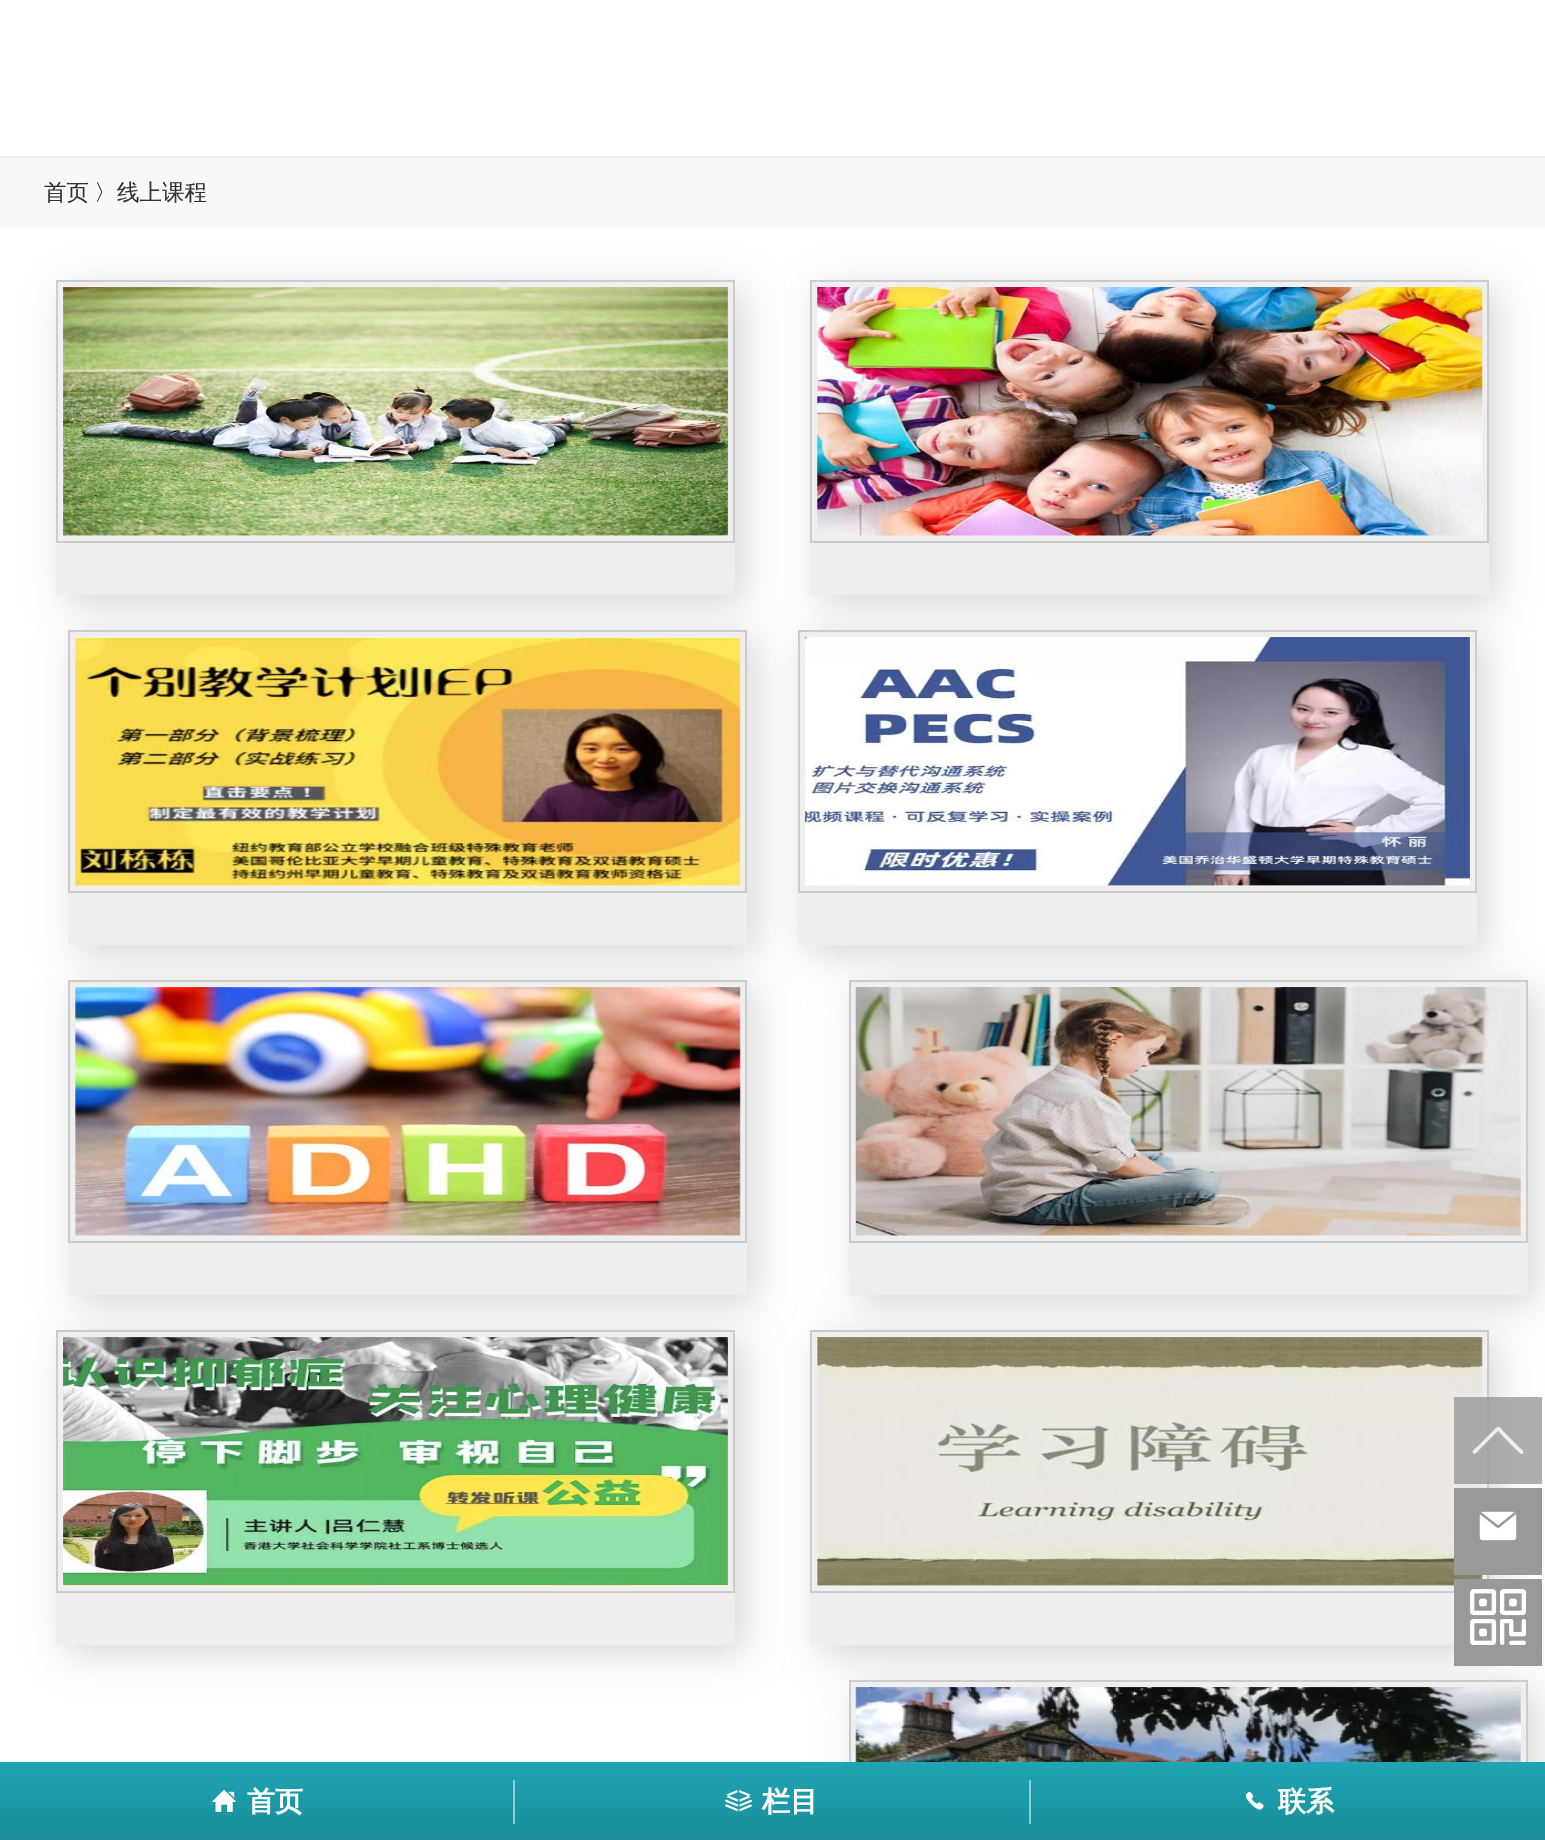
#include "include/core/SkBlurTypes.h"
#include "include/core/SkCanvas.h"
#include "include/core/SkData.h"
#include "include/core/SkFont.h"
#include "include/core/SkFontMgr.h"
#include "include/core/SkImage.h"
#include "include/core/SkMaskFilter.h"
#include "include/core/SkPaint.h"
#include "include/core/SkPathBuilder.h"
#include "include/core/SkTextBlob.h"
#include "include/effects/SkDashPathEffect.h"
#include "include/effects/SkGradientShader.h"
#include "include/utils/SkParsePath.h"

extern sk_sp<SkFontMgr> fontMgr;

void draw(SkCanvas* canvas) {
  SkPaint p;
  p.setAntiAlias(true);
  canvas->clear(SK_ColorWHITE);
  p.setColor(SkColorSetRGB(238, 238, 238));
  canvas->drawRect(SkRect::MakeLTRB(0, 156, 1545, 158), p);
  p.setColor(SkColorSetRGB(248, 248, 248));
  canvas->drawRect(SkRect::MakeLTRB(0, 158, 1545, 228), p);
  p.setColor(SkColorSetARGB(38, 0, 0, 10));
  p.setMaskFilter(SkMaskFilter::MakeBlur(kNormal_SkBlurStyle, 17.5f));
  canvas->drawRect(SkRect::MakeLTRB(65, 289, 744, 604), p);
  p.setMaskFilter(nullptr);
  p.setColor(SkColorSetRGB(239, 239, 239));
  canvas->drawRect(SkRect::MakeLTRB(56, 282, 735, 595), p);
  p.setStyle(SkPaint::kStroke_Style);
  p.setStrokeWidth(2);
  p.setColor(SkColorSetRGB(204, 204, 204));
  canvas->drawRect(SkRect::MakeLTRB(57, 281, 734, 542), p);
  canvas->drawImageRect(SkImages::DeferredFromEncodedData(SkData::MakeFromFileName("images/1.png")), SkRect::MakeLTRB(63, 287, 728, 536), SkSamplingOptions());
  p.setStyle(SkPaint::kFill_Style);
  p.setColor(SkColorSetARGB(38, 0, 0, 10));
  p.setMaskFilter(SkMaskFilter::MakeBlur(kNormal_SkBlurStyle, 17.5f));
  canvas->drawRect(SkRect::MakeLTRB(819, 289, 1498, 604), p);
  p.setMaskFilter(nullptr);
  p.setColor(SkColorSetRGB(239, 239, 239));
  canvas->drawRect(SkRect::MakeLTRB(810, 282, 1489, 595), p);
  p.setStyle(SkPaint::kStroke_Style);
  p.setColor(SkColorSetRGB(204, 204, 204));
  canvas->drawRect(SkRect::MakeLTRB(811, 281, 1488, 542), p);
  canvas->drawImageRect(SkImages::DeferredFromEncodedData(SkData::MakeFromFileName("images/2.png")), SkRect::MakeLTRB(817, 287, 1483, 536), SkSamplingOptions());
  p.setStyle(SkPaint::kFill_Style);
  p.setColor(SkColorSetARGB(38, 0, 0, 10));
  p.setMaskFilter(SkMaskFilter::MakeBlur(kNormal_SkBlurStyle, 17.5f));
  canvas->drawRect(SkRect::MakeLTRB(77, 639, 756, 954), p);
  p.setMaskFilter(nullptr);
  p.setColor(SkColorSetRGB(239, 239, 239));
  canvas->drawRect(SkRect::MakeLTRB(68, 632, 747, 945), p);
  p.setStyle(SkPaint::kStroke_Style);
  p.setColor(SkColorSetRGB(204, 204, 204));
  canvas->drawRect(SkRect::MakeLTRB(69, 631, 746, 892), p);
  canvas->drawImageRect(SkImages::DeferredFromEncodedData(SkData::MakeFromFileName("images/3.png")), SkRect::MakeLTRB(75, 637, 741, 886), SkSamplingOptions());
  p.setStyle(SkPaint::kFill_Style);
  p.setColor(SkColorSetARGB(38, 0, 0, 10));
  p.setMaskFilter(SkMaskFilter::MakeBlur(kNormal_SkBlurStyle, 17.5f));
  canvas->drawRect(SkRect::MakeLTRB(807, 639, 1486, 954), p);
  p.setMaskFilter(nullptr);
  p.setColor(SkColorSetRGB(239, 239, 239));
  canvas->drawRect(SkRect::MakeLTRB(798, 632, 1477, 945), p);
  p.setStyle(SkPaint::kStroke_Style);
  p.setColor(SkColorSetRGB(204, 204, 204));
  canvas->drawRect(SkRect::MakeLTRB(799, 631, 1476, 892), p);
  canvas->drawImageRect(SkImages::DeferredFromEncodedData(SkData::MakeFromFileName("images/4.png")), SkRect::MakeLTRB(805, 637, 1470, 886), SkSamplingOptions());
  p.setStyle(SkPaint::kFill_Style);
  p.setColor(SkColorSetARGB(38, 0, 0, 10));
  p.setMaskFilter(SkMaskFilter::MakeBlur(kNormal_SkBlurStyle, 17.5f));
  canvas->drawRect(SkRect::MakeLTRB(77, 989, 756, 1304), p);
  p.setMaskFilter(nullptr);
  p.setColor(SkColorSetRGB(239, 239, 239));
  canvas->drawRect(SkRect::MakeLTRB(68, 982, 747, 1295), p);
  p.setStyle(SkPaint::kStroke_Style);
  p.setColor(SkColorSetRGB(204, 204, 204));
  canvas->drawRect(SkRect::MakeLTRB(69, 981, 746, 1242), p);
  canvas->drawImageRect(SkImages::DeferredFromEncodedData(SkData::MakeFromFileName("images/5.png")), SkRect::MakeLTRB(75, 987, 741, 1236), SkSamplingOptions());
  p.setStyle(SkPaint::kFill_Style);
  p.setColor(SkColorSetARGB(38, 0, 0, 10));
  p.setMaskFilter(SkMaskFilter::MakeBlur(kNormal_SkBlurStyle, 17.5f));
  canvas->drawRect(SkRect::MakeLTRB(858, 989, 1537, 1304), p);
  p.setMaskFilter(nullptr);
  p.setColor(SkColorSetRGB(239, 239, 239));
  canvas->drawRect(SkRect::MakeLTRB(849, 982, 1528, 1295), p);
  p.setStyle(SkPaint::kStroke_Style);
  p.setColor(SkColorSetRGB(204, 204, 204));
  canvas->drawRect(SkRect::MakeLTRB(850, 981, 1527, 1242), p);
  canvas->drawImageRect(SkImages::DeferredFromEncodedData(SkData::MakeFromFileName("images/6.png")), SkRect::MakeLTRB(855, 987, 1521, 1236), SkSamplingOptions());
  p.setStyle(SkPaint::kFill_Style);
  p.setColor(SkColorSetARGB(38, 0, 0, 10));
  p.setMaskFilter(SkMaskFilter::MakeBlur(kNormal_SkBlurStyle, 17.5f));
  canvas->drawRect(SkRect::MakeLTRB(65, 1339, 744, 1654), p);
  p.setMaskFilter(nullptr);
  p.setColor(SkColorSetRGB(239, 239, 239));
  canvas->drawRect(SkRect::MakeLTRB(56, 1332, 735, 1645), p);
  p.setStyle(SkPaint::kStroke_Style);
  p.setColor(SkColorSetRGB(204, 204, 204));
  canvas->drawRect(SkRect::MakeLTRB(57, 1331, 734, 1592), p);
  canvas->drawImageRect(SkImages::DeferredFromEncodedData(SkData::MakeFromFileName("images/7.png")), SkRect::MakeLTRB(63, 1337, 728, 1586), SkSamplingOptions());
  p.setStyle(SkPaint::kFill_Style);
  p.setColor(SkColorSetARGB(38, 0, 0, 10));
  p.setMaskFilter(SkMaskFilter::MakeBlur(kNormal_SkBlurStyle, 17.5f));
  canvas->drawRect(SkRect::MakeLTRB(819, 1339, 1498, 1654), p);
  p.setMaskFilter(nullptr);
  p.setColor(SkColorSetRGB(239, 239, 239));
  canvas->drawRect(SkRect::MakeLTRB(810, 1332, 1487, 1645), p);
  p.setStyle(SkPaint::kStroke_Style);
  p.setColor(SkColorSetRGB(204, 204, 204));
  canvas->drawRect(SkRect::MakeLTRB(811, 1331, 1488, 1592), p);
  canvas->drawImageRect(SkImages::DeferredFromEncodedData(SkData::MakeFromFileName("images/8.png")), SkRect::MakeLTRB(817, 1337, 1483, 1586), SkSamplingOptions());
  p.setStyle(SkPaint::kFill_Style);
  p.setColor(SkColorSetARGB(38, 0, 0, 10));
  p.setMaskFilter(SkMaskFilter::MakeBlur(kNormal_SkBlurStyle, 17.5f));
  canvas->drawRect(SkRect::MakeLTRB(858, 1689, 1537, 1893), p);
  p.setMaskFilter(nullptr);
  p.setColor(SkColorSetRGB(239, 239, 239));
  canvas->drawRect(SkRect::MakeLTRB(851, 1682, 1526, 1762), p);
  p.setStyle(SkPaint::kStroke_Style);
  p.setColor(SkColorSetRGB(204, 204, 204));
  canvas->drawRect(SkRect::MakeLTRB(850, 1681, 1527, 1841), p);
  canvas->drawImageRect(SkImages::DeferredFromEncodedData(SkData::MakeFromFileName("images/9.png")), SkRect::MakeLTRB(855, 1687, 1521, 1762), SkSamplingOptions());
  p.setStyle(SkPaint::kFill_Style);
  p.setColor(SkColorSetARGB(204, 153, 153, 153));
  canvas->drawRect(SkRect::MakeLTRB(1454, 1397, 1542, 1484), p);
  p.setColor(SkColorSetARGB(204, 255, 255, 255));
  canvas->drawPath(SkPathBuilder().moveTo(1522, 1454).cubicTo(1519, 1454, 1501, 1434, 1498, 1431).lineTo(1479, 1450).cubicTo(1479, 1450, 1475, 1456, 1473, 1453).cubicTo(1471, 1451, 1477, 1447, 1477, 1447).lineTo(1497, 1427).cubicTo(1500, 1426, 1503, 1431, 1503, 1431).lineTo(1523, 1451).cubicTo(1524, 1453, 1523, 1454, 1522, 1454).close().detach(), p);
  p.setColor(SkColorSetRGB(153, 153, 153));
  canvas->drawRect(SkRect::MakeLTRB(1454, 1488, 1542, 1575), p);
  canvas->drawImageRect(SkImages::DeferredFromEncodedData(SkData::MakeFromFileName("images/10.png")), SkRect::MakeLTRB(1479, 1511, 1517, 1541), SkSamplingOptions());
  canvas->drawRect(SkRect::MakeLTRB(1454, 1579, 1542, 1666), p);
  canvas->drawImageRect(SkImages::DeferredFromEncodedData(SkData::MakeFromFileName("images/11.png")), SkRect::MakeLTRB(1470, 1589, 1526, 1645), SkSamplingOptions());
  {
    const SkColor colors[] = {SkColorSetRGB(31, 165, 181), SkColorSetRGB(24, 140, 153)};
    const float stops[] = {0, 1};
    const SkPoint ends[] = {{773, 1762}, {773, 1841}};
    p.setShader(SkGradientShader::MakeLinear(ends, colors, stops, 2, SkTileMode::kClamp));
    p.setAlpha(255);
  }
  canvas->drawRect(SkRect::MakeLTRB(0, 1762, 1545, 1840), p);
  {
    const SkColor colors[] = {SkColorSetRGB(143, 210, 218), SkColorSetRGB(140, 198, 204)};
    const float stops[] = {0, 1};
    const SkPoint ends[] = {{773, 1762}, {773, 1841}};
    p.setShader(SkGradientShader::MakeLinear(ends, colors, stops, 2, SkTileMode::kClamp));
    p.setAlpha(255);
  }
  canvas->drawRect(SkRect::MakeLTRB(513, 1780, 515, 1824), p);
  canvas->drawImageRect(SkImages::DeferredFromEncodedData(SkData::MakeFromFileName("images/12.png")), SkRect::MakeLTRB(211, 1789, 237, 1812), SkSamplingOptions());
  p.setShader(nullptr);
  p.setColor(SkColorSetARGB(128, 255, 255, 255));
  canvas->drawRect(SkRect::MakeLTRB(1029, 1780, 1031, 1824), p);
  canvas->drawImageRect(SkImages::DeferredFromEncodedData(SkData::MakeFromFileName("images/13.png")), SkRect::MakeLTRB(725, 1789, 752, 1812), SkSamplingOptions());
  canvas->drawImageRect(SkImages::DeferredFromEncodedData(SkData::MakeFromFileName("images/14.png")), SkRect::MakeLTRB(1245, 1791, 1264, 1810), SkSamplingOptions());
  SkFont font1(fontMgr->matchFamilyStyle("WenQuanYi Zen Hei", SkFontStyle(500, SkFontStyle::kNormal_Width, SkFontStyle::kUpright_Slant)), 22.5f);
  font1.setSubpixel(true);
  p.setColor(SkColorSetRGB(51, 51, 51));
  canvas->drawString("首页", 44, 200, font1, p);
  p.setColor(SkColorSetRGB(34, 34, 34));
  canvas->drawString("〉", 94, 200, font1, p);
  p.setColor(SkColorSetRGB(51, 51, 51));
  canvas->drawString("线上课程", 117, 200, font1, p);
  SkFont font2(fontMgr->matchFamilyStyle("WenQuanYi Zen Hei", SkFontStyle::Bold()), 28);
  font2.setSubpixel(true);
  p.setColor(SK_ColorWHITE);
  canvas->drawString("首页", 247, 1811, font2, p);
  canvas->drawString("栏目", 762, 1811, font2, p);
  canvas->drawString("联系", 1278, 1811, font2, p);
}
